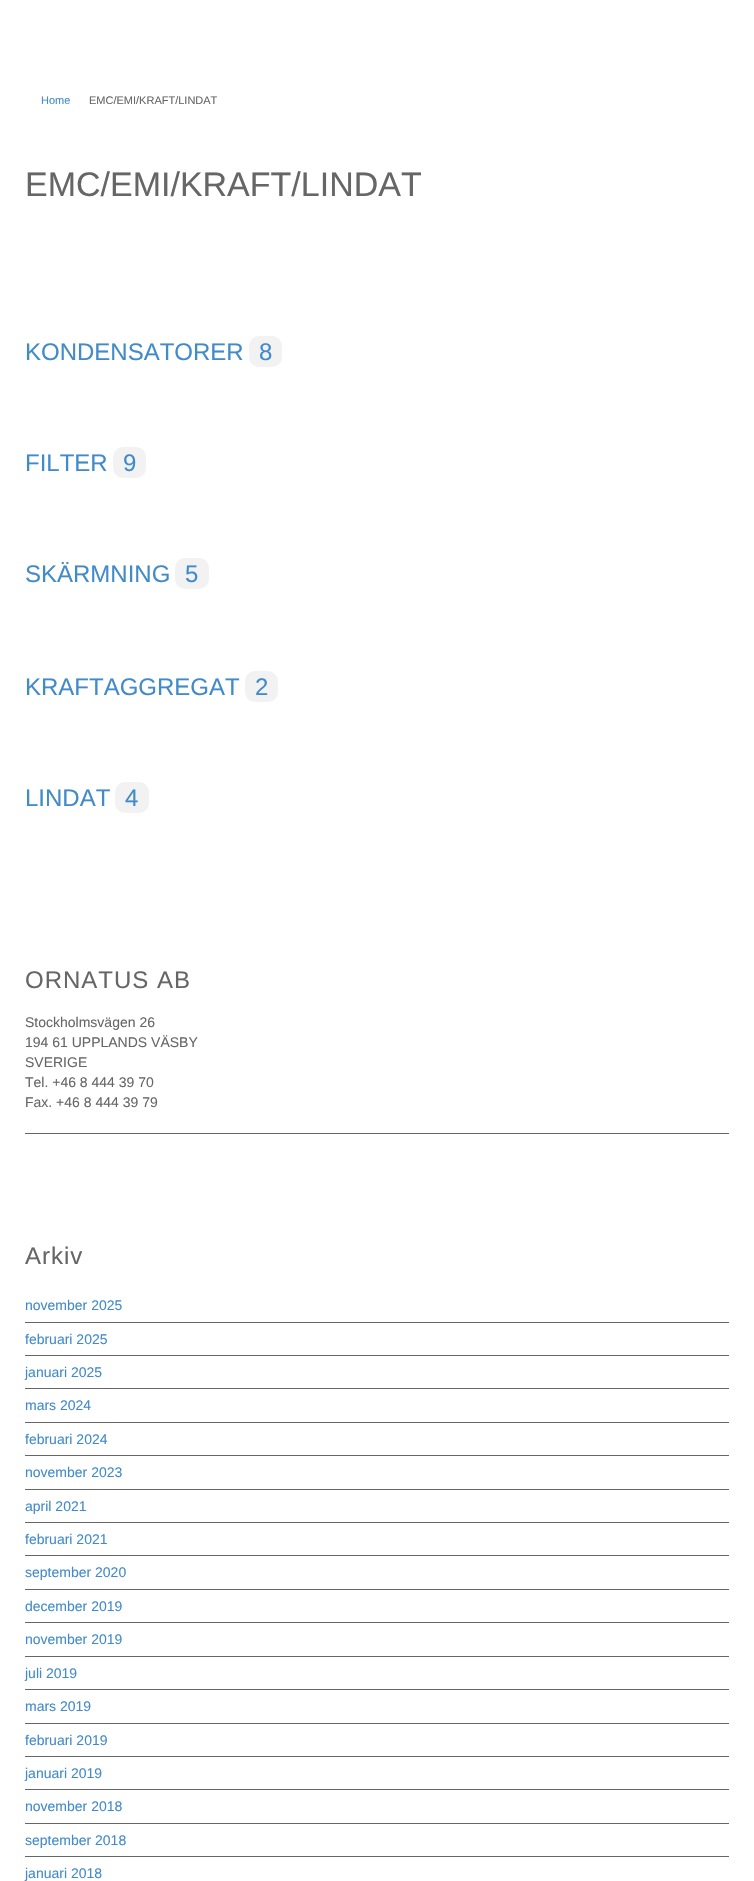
#include "include/core/SkBlurTypes.h"
#include "include/core/SkCanvas.h"
#include "include/core/SkData.h"
#include "include/core/SkFont.h"
#include "include/core/SkFontMgr.h"
#include "include/core/SkImage.h"
#include "include/core/SkMaskFilter.h"
#include "include/core/SkPaint.h"
#include "include/core/SkPathBuilder.h"
#include "include/core/SkTextBlob.h"
#include "include/effects/SkDashPathEffect.h"
#include "include/effects/SkGradientShader.h"
#include "include/utils/SkParsePath.h"

extern sk_sp<SkFontMgr> fontMgr;

void draw(SkCanvas* canvas) {
  SkPaint p;
  p.setAntiAlias(true);
  auto spacedText = [&](const char* s, float x, float y, const SkFont& font, const SkPaint& ink, float letter, float word) {
    std::vector<SkGlyphID> glyphs(font.countText(s, strlen(s), SkTextEncoding::kUTF8));
    std::vector<float> xs(glyphs.size());
    font.textToGlyphs(s, strlen(s), SkTextEncoding::kUTF8, glyphs);
    font.getXPos(glyphs, xs, x);
    float extra = 0;
    for (size_t i = 0; i < glyphs.size(); i++) {
      xs[i] += extra;
      extra += letter + word * (glyphs[i] == font.unicharToGlyph(' '));
    }
    canvas->drawTextBlob(SkTextBlob::MakeFromPosHGlyphs(glyphs, xs, y, font), 0, 0, ink);
  };
  canvas->clear(SK_ColorWHITE);
  p.setColor(SkColorSetRGB(242, 242, 242));
  canvas->drawRoundRect(SkRect::MakeLTRB(249, 336, 282, 367), 10, 10, p);
  canvas->drawRoundRect(SkRect::MakeLTRB(113, 447, 146, 478), 10, 10, p);
  canvas->drawRoundRect(SkRect::MakeLTRB(175, 558, 209, 589), 10, 10, p);
  canvas->drawRoundRect(SkRect::MakeLTRB(245, 671, 278, 702), 10, 10, p);
  canvas->drawRoundRect(SkRect::MakeLTRB(115, 782, 149, 813), 10, 10, p);
  p.setColor(SkColorSetRGB(102, 102, 102));
  canvas->drawRect(SkRect::MakeLTRB(25, 1133, 729, 1134), p);
  canvas->drawRect(SkRect::MakeLTRB(25, 1322, 729, 1323), p);
  canvas->drawRect(SkRect::MakeLTRB(25, 1355, 729, 1356), p);
  canvas->drawRect(SkRect::MakeLTRB(25, 1388, 729, 1389), p);
  canvas->drawRect(SkRect::MakeLTRB(25, 1422, 729, 1423), p);
  canvas->drawRect(SkRect::MakeLTRB(25, 1455, 729, 1456), p);
  canvas->drawRect(SkRect::MakeLTRB(25, 1489, 729, 1490), p);
  canvas->drawRect(SkRect::MakeLTRB(25, 1522, 729, 1523), p);
  canvas->drawRect(SkRect::MakeLTRB(25, 1555, 729, 1556), p);
  canvas->drawRect(SkRect::MakeLTRB(25, 1589, 729, 1590), p);
  canvas->drawRect(SkRect::MakeLTRB(25, 1622, 729, 1623), p);
  canvas->drawRect(SkRect::MakeLTRB(25, 1656, 729, 1657), p);
  canvas->drawRect(SkRect::MakeLTRB(25, 1689, 729, 1690), p);
  canvas->drawRect(SkRect::MakeLTRB(25, 1723, 729, 1724), p);
  canvas->drawRect(SkRect::MakeLTRB(25, 1756, 729, 1757), p);
  canvas->drawRect(SkRect::MakeLTRB(25, 1789, 729, 1790), p);
  canvas->drawRect(SkRect::MakeLTRB(25, 1823, 729, 1824), p);
  canvas->drawRect(SkRect::MakeLTRB(25, 1856, 729, 1857), p);
  SkFont font1(fontMgr->matchFamilyStyle("Liberation Sans", SkFontStyle::Normal()), 11);
  font1.setSubpixel(true);
  p.setColor(SkColorSetRGB(66, 139, 202));
  canvas->drawString("Home", 41, 104, font1, p);
  p.setColor(SkColorSetRGB(102, 102, 102));
  canvas->drawString("EMC/EMI/KRAFT/LINDAT", 89, 104, font1, p);
  SkFont font2(fontMgr->matchFamilyStyle("Liberation Sans", SkFontStyle::Normal()), 34);
  font2.setSubpixel(true);
  canvas->drawString("EMC/EMI/KRAFT/LINDAT", 25, 196, font2, p);
  SkFont font3(fontMgr->matchFamilyStyle("Liberation Sans", SkFontStyle::Normal()), 24);
  font3.setSubpixel(true);
  p.setColor(SkColorSetRGB(66, 139, 202));
  canvas->drawString("KONDENSATORER", 25, 360, font3, p);
  canvas->drawString("8", 259, 360, font3, p);
  canvas->drawString("FILTER", 25, 471, font3, p);
  canvas->drawString("9", 123, 471, font3, p);
  canvas->drawString("SKÄRMNING", 25, 582, font3, p);
  canvas->drawString("5", 185, 582, font3, p);
  canvas->drawString("KRAFTAGGREGAT", 25, 695, font3, p);
  canvas->drawString("2", 255, 695, font3, p);
  canvas->drawString("LINDAT", 25, 806, font3, p);
  canvas->drawString("4", 125, 806, font3, p);
  p.setColor(SkColorSetRGB(102, 102, 102));
  spacedText("ORNATUS AB", 25, 988, font3, p, 1, 0);
  SkFont font4(fontMgr->matchFamilyStyle("Liberation Sans", SkFontStyle::Normal()), 14);
  font4.setSubpixel(true);
  canvas->drawString("Stockholmsvägen 26", 25, 1027, font4, p);
  canvas->drawString("194 61 UPPLANDS VÄSBY", 25, 1047, font4, p);
  canvas->drawString("SVERIGE", 25, 1067, font4, p);
  canvas->drawString("Tel. +46 8 444 39 70", 25, 1087, font4, p);
  canvas->drawString("Fax. +46 8 444 39 79", 25, 1107, font4, p);
  spacedText("Arkiv", 25, 1264, font3, p, 1, 0);
  p.setColor(SkColorSetRGB(66, 139, 202));
  canvas->drawString("november 2025", 25, 1310, font4, p);
  canvas->drawString("februari 2025", 25, 1344, font4, p);
  canvas->drawString("januari 2025", 25, 1377, font4, p);
  canvas->drawString("mars 2024", 25, 1410, font4, p);
  canvas->drawString("februari 2024", 25, 1444, font4, p);
  canvas->drawString("november 2023", 25, 1477, font4, p);
  canvas->drawString("april 2021", 25, 1511, font4, p);
  canvas->drawString("februari 2021", 25, 1544, font4, p);
  canvas->drawString("september 2020", 25, 1577, font4, p);
  canvas->drawString("december 2019", 25, 1611, font4, p);
  canvas->drawString("november 2019", 25, 1644, font4, p);
  canvas->drawString("juli 2019", 25, 1678, font4, p);
  canvas->drawString("mars 2019", 25, 1711, font4, p);
  canvas->drawString("februari 2019", 25, 1745, font4, p);
  canvas->drawString("januari 2019", 25, 1778, font4, p);
  canvas->drawString("november 2018", 25, 1811, font4, p);
  canvas->drawString("september 2018", 25, 1845, font4, p);
  canvas->drawString("januari 2018", 25, 1878, font4, p);
}
